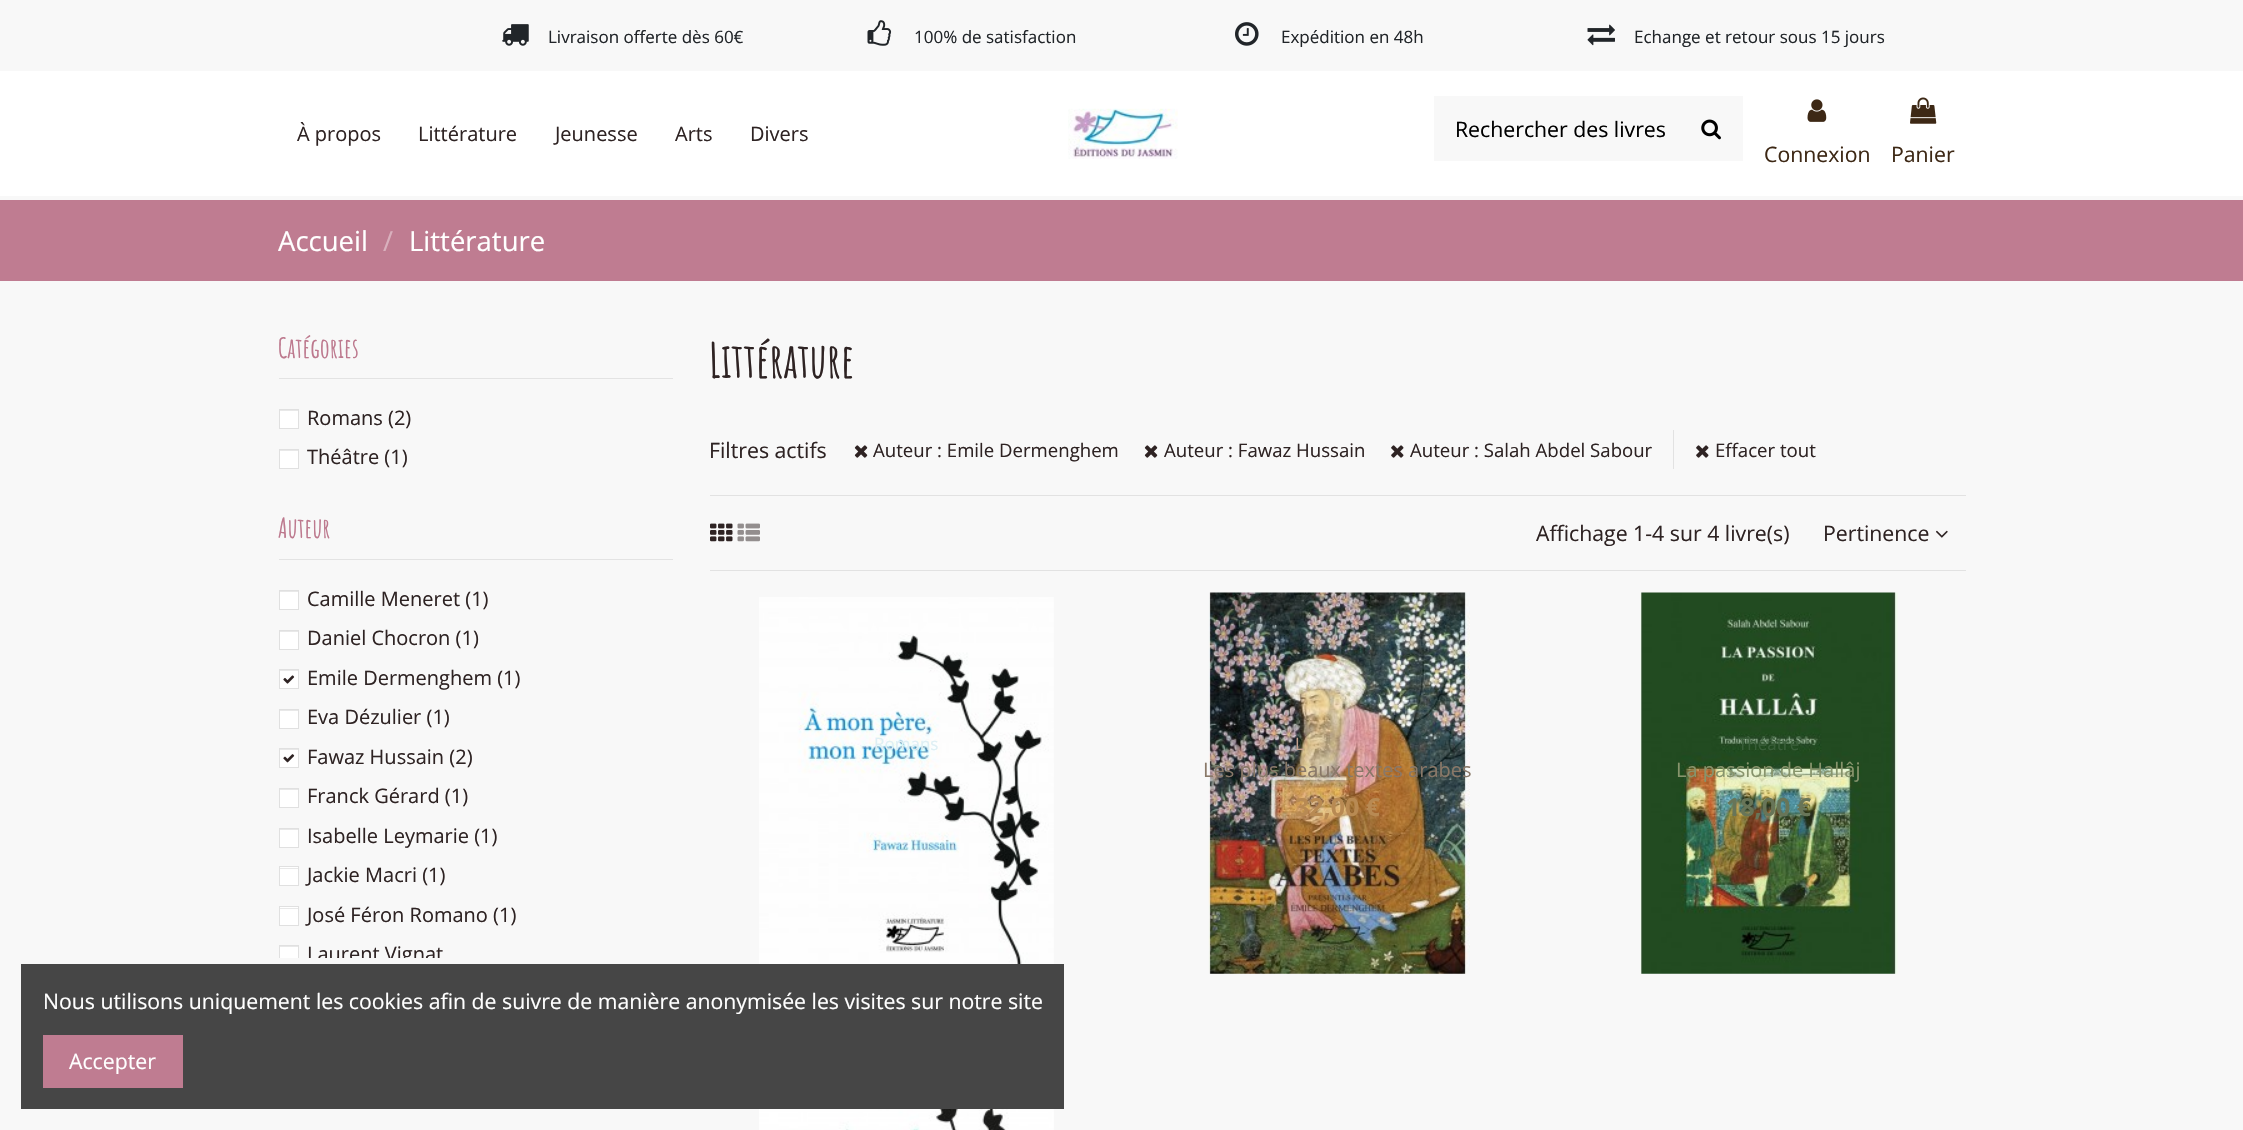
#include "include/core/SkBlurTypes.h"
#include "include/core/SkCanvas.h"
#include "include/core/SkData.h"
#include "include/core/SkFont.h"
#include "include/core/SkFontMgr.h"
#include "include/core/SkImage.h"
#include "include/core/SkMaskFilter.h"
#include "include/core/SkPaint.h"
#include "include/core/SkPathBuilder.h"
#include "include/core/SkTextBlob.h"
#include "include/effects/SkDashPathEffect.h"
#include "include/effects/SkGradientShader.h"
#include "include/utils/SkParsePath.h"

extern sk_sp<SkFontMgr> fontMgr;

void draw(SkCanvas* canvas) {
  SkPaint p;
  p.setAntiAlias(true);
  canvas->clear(SK_ColorWHITE);
  p.setColor(SkColorSetRGB(248, 248, 248));
  canvas->drawRect(SkRect::MakeLTRB(0, 196, 2243, 200), p);
  canvas->drawRect(SkRect::MakeLTRB(0, 0, 2243, 71), p);
  canvas->drawImageRect(SkImages::DeferredFromEncodedData(SkData::MakeFromFileName("images/1.png")), SkRect::MakeLTRB(502, 24, 529, 46), SkSamplingOptions());
  canvas->drawImageRect(SkImages::DeferredFromEncodedData(SkData::MakeFromFileName("images/2.png")), SkRect::MakeLTRB(867, 20, 892, 46), SkSamplingOptions());
  canvas->drawImageRect(SkImages::DeferredFromEncodedData(SkData::MakeFromFileName("images/3.png")), SkRect::MakeLTRB(1235, 22, 1259, 46), SkSamplingOptions());
  canvas->drawImageRect(SkImages::DeferredFromEncodedData(SkData::MakeFromFileName("images/4.png")), SkRect::MakeLTRB(1587, 24, 1615, 46), SkSamplingOptions());
  canvas->drawImageRect(SkImages::DeferredFromEncodedData(SkData::MakeFromFileName("images/5.png")), SkRect::MakeLTRB(1068, 108, 1178, 159), SkSamplingOptions());
  canvas->drawRect(SkRect::MakeLTRB(1434, 96, 1743, 161), p);
  canvas->drawImageRect(SkImages::DeferredFromEncodedData(SkData::MakeFromFileName("images/6.png")), SkRect::MakeLTRB(1701, 119, 1721, 140), SkSamplingOptions());
  canvas->drawImageRect(SkImages::DeferredFromEncodedData(SkData::MakeFromFileName("images/7.png")), SkRect::MakeLTRB(1807, 99, 1827, 122), SkSamplingOptions());
  canvas->drawImageRect(SkImages::DeferredFromEncodedData(SkData::MakeFromFileName("images/8.png")), SkRect::MakeLTRB(1910, 97, 1937, 124), SkSamplingOptions());
  canvas->drawRect(SkRect::MakeLTRB(0, 281, 2243, 1130), p);
  p.setColor(SkColorSetRGB(191, 124, 145));
  canvas->drawRect(SkRect::MakeLTRB(0, 200, 2243, 281), p);
  p.setColor(SkColorSetRGB(227, 227, 227));
  canvas->drawRect(SkRect::MakeLTRB(279, 378, 673, 379), p);
  p.setColor(SK_ColorWHITE);
  canvas->drawRect(SkRect::MakeLTRB(280, 411, 298, 428), p);
  p.setColor(SkColorSetRGB(232, 232, 232));
  canvas->drawRect(SkRect::MakeLTRB(280, 410, 298, 411), p);
  p.setStyle(SkPaint::kStroke_Style);
  p.setStrokeWidth(1);
  p.setColor(SkColorSetRGB(224, 224, 224));
  canvas->drawRect(SkRect::MakeLTRB(279.5f, 409.5f, 298.5f, 428.5f), p);
  p.setStyle(SkPaint::kFill_Style);
  p.setColor(SK_ColorWHITE);
  canvas->drawRect(SkRect::MakeLTRB(280, 451, 298, 468), p);
  p.setColor(SkColorSetRGB(232, 232, 232));
  canvas->drawRect(SkRect::MakeLTRB(280, 450, 298, 451), p);
  p.setStyle(SkPaint::kStroke_Style);
  p.setColor(SkColorSetRGB(224, 224, 224));
  canvas->drawRect(SkRect::MakeLTRB(279.5f, 449.5f, 298.5f, 468.5f), p);
  p.setStyle(SkPaint::kFill_Style);
  p.setColor(SkColorSetRGB(227, 227, 227));
  canvas->drawRect(SkRect::MakeLTRB(279, 559, 673, 560), p);
  p.setColor(SK_ColorWHITE);
  canvas->drawRect(SkRect::MakeLTRB(280, 592, 298, 609), p);
  p.setColor(SkColorSetRGB(232, 232, 232));
  canvas->drawRect(SkRect::MakeLTRB(280, 591, 298, 592), p);
  p.setStyle(SkPaint::kStroke_Style);
  p.setColor(SkColorSetRGB(224, 224, 224));
  canvas->drawRect(SkRect::MakeLTRB(279.5f, 590.5f, 298.5f, 609.5f), p);
  p.setStyle(SkPaint::kFill_Style);
  p.setColor(SK_ColorWHITE);
  canvas->drawRect(SkRect::MakeLTRB(280, 632, 298, 649), p);
  p.setColor(SkColorSetRGB(232, 232, 232));
  canvas->drawRect(SkRect::MakeLTRB(280, 631, 298, 632), p);
  p.setStyle(SkPaint::kStroke_Style);
  p.setColor(SkColorSetRGB(224, 224, 224));
  canvas->drawRect(SkRect::MakeLTRB(279.5f, 630.5f, 298.5f, 649.5f), p);
  p.setStyle(SkPaint::kFill_Style);
  p.setColor(SK_ColorWHITE);
  canvas->drawRect(SkRect::MakeLTRB(280, 671, 298, 688), p);
  p.setColor(SkColorSetRGB(232, 232, 232));
  canvas->drawRect(SkRect::MakeLTRB(280, 670, 298, 671), p);
  p.setStyle(SkPaint::kStroke_Style);
  p.setColor(SkColorSetRGB(224, 224, 224));
  canvas->drawRect(SkRect::MakeLTRB(279.5f, 669.5f, 298.5f, 688.5f), p);
  canvas->drawImageRect(SkImages::DeferredFromEncodedData(SkData::MakeFromFileName("images/9.png")), SkRect::MakeLTRB(283, 675, 295, 684), SkSamplingOptions());
  p.setStyle(SkPaint::kFill_Style);
  p.setColor(SK_ColorWHITE);
  canvas->drawRect(SkRect::MakeLTRB(280, 711, 298, 728), p);
  p.setColor(SkColorSetRGB(232, 232, 232));
  canvas->drawRect(SkRect::MakeLTRB(280, 710, 298, 711), p);
  p.setStyle(SkPaint::kStroke_Style);
  p.setColor(SkColorSetRGB(224, 224, 224));
  canvas->drawRect(SkRect::MakeLTRB(279.5f, 709.5f, 298.5f, 728.5f), p);
  p.setStyle(SkPaint::kFill_Style);
  p.setColor(SK_ColorWHITE);
  canvas->drawRect(SkRect::MakeLTRB(280, 750, 298, 767), p);
  p.setColor(SkColorSetRGB(232, 232, 232));
  canvas->drawRect(SkRect::MakeLTRB(280, 749, 298, 750), p);
  p.setStyle(SkPaint::kStroke_Style);
  p.setColor(SkColorSetRGB(224, 224, 224));
  canvas->drawRect(SkRect::MakeLTRB(279.5f, 748.5f, 298.5f, 767.5f), p);
  canvas->drawImageRect(SkImages::DeferredFromEncodedData(SkData::MakeFromFileName("images/10.png")), SkRect::MakeLTRB(283, 754, 295, 763), SkSamplingOptions());
  p.setStyle(SkPaint::kFill_Style);
  p.setColor(SK_ColorWHITE);
  canvas->drawRect(SkRect::MakeLTRB(280, 790, 298, 807), p);
  p.setColor(SkColorSetRGB(232, 232, 232));
  canvas->drawRect(SkRect::MakeLTRB(280, 789, 298, 790), p);
  p.setStyle(SkPaint::kStroke_Style);
  p.setColor(SkColorSetRGB(224, 224, 224));
  canvas->drawRect(SkRect::MakeLTRB(279.5f, 788.5f, 298.5f, 807.5f), p);
  p.setStyle(SkPaint::kFill_Style);
  p.setColor(SK_ColorWHITE);
  canvas->drawRect(SkRect::MakeLTRB(280, 830, 298, 847), p);
  p.setColor(SkColorSetRGB(232, 232, 232));
  canvas->drawRect(SkRect::MakeLTRB(280, 829, 298, 830), p);
  p.setStyle(SkPaint::kStroke_Style);
  p.setColor(SkColorSetRGB(224, 224, 224));
  canvas->drawRect(SkRect::MakeLTRB(279.5f, 828.5f, 298.5f, 847.5f), p);
  p.setStyle(SkPaint::kFill_Style);
  p.setColor(SK_ColorWHITE);
  canvas->drawRect(SkRect::MakeLTRB(280, 867, 298, 885), p);
  p.setColor(SkColorSetRGB(232, 232, 232));
  canvas->drawRect(SkRect::MakeLTRB(280, 868, 298, 869), p);
  p.setStyle(SkPaint::kStroke_Style);
  p.setColor(SkColorSetRGB(224, 224, 224));
  canvas->drawRect(SkRect::MakeLTRB(279.5f, 866.5f, 298.5f, 885.5f), p);
  p.setStyle(SkPaint::kFill_Style);
  p.setColor(SK_ColorWHITE);
  canvas->drawRect(SkRect::MakeLTRB(280, 907, 298, 925), p);
  p.setColor(SkColorSetRGB(232, 232, 232));
  canvas->drawRect(SkRect::MakeLTRB(280, 908, 298, 909), p);
  p.setStyle(SkPaint::kStroke_Style);
  p.setColor(SkColorSetRGB(224, 224, 224));
  canvas->drawRect(SkRect::MakeLTRB(279.5f, 906.5f, 298.5f, 925.5f), p);
  p.setStyle(SkPaint::kFill_Style);
  p.setColor(SK_ColorWHITE);
  canvas->drawRect(SkRect::MakeLTRB(280, 947, 298, 958), p);
  p.setColor(SkColorSetRGB(232, 232, 232));
  canvas->drawRect(SkRect::MakeLTRB(280, 946, 298, 947), p);
  canvas->save();
  canvas->clipRect(SkRect::MakeLTRB(279, 583, 673, 958));
  p.setStyle(SkPaint::kStroke_Style);
  p.setColor(SkColorSetRGB(224, 224, 224));
  canvas->drawRect(SkRect::MakeLTRB(279.5f, 945.5f, 298.5f, 964.5f), p);
  canvas->restore();
  canvas->drawImageRect(SkImages::DeferredFromEncodedData(SkData::MakeFromFileName("images/11.png")), SkRect::MakeLTRB(854, 445, 868, 458), SkSamplingOptions());
  canvas->drawImageRect(SkImages::DeferredFromEncodedData(SkData::MakeFromFileName("images/11.png")), SkRect::MakeLTRB(1144, 445, 1158, 458), SkSamplingOptions());
  canvas->drawImageRect(SkImages::DeferredFromEncodedData(SkData::MakeFromFileName("images/12.png")), SkRect::MakeLTRB(1391, 445, 1404, 458), SkSamplingOptions());
  p.setStyle(SkPaint::kFill_Style);
  p.setColor(SkColorSetRGB(226, 226, 226));
  canvas->drawRect(SkRect::MakeLTRB(1673, 430, 1674, 469), p);
  canvas->drawImageRect(SkImages::DeferredFromEncodedData(SkData::MakeFromFileName("images/12.png")), SkRect::MakeLTRB(1696, 445, 1709, 458), SkSamplingOptions());
  canvas->drawRect(SkRect::MakeLTRB(710, 495, 1966, 496), p);
  canvas->drawRect(SkRect::MakeLTRB(710, 570, 1966, 571), p);
  canvas->drawImageRect(SkImages::DeferredFromEncodedData(SkData::MakeFromFileName("images/13.png")), SkRect::MakeLTRB(710, 523, 733, 542), SkSamplingOptions());
  canvas->drawImageRect(SkImages::DeferredFromEncodedData(SkData::MakeFromFileName("images/14.png")), SkRect::MakeLTRB(737, 523, 760, 542), SkSamplingOptions());
  canvas->drawImageRect(SkImages::DeferredFromEncodedData(SkData::MakeFromFileName("images/15.png")), SkRect::MakeLTRB(1936, 530, 1948, 538), SkSamplingOptions());
  canvas->drawImageRect(SkImages::DeferredFromEncodedData(SkData::MakeFromFileName("images/16.png")), SkRect::MakeLTRB(759, 597, 1054, 964), SkSamplingOptions());
  canvas->drawImageRect(SkImages::DeferredFromEncodedData(SkData::MakeFromFileName("images/17.png")), SkRect::MakeLTRB(1208, 592, 1470, 974), SkSamplingOptions());
  canvas->drawImageRect(SkImages::DeferredFromEncodedData(SkData::MakeFromFileName("images/18.png")), SkRect::MakeLTRB(1640, 592, 1898, 974), SkSamplingOptions());
  canvas->drawImageRect(SkImages::DeferredFromEncodedData(SkData::MakeFromFileName("images/19.png")), SkRect::MakeLTRB(759, 1109, 1054, 1130), SkSamplingOptions());
  p.setColor(SkColorSetRGB(70, 70, 70));
  canvas->drawRect(SkRect::MakeLTRB(21, 964, 1064, 1109), p);
  p.setColor(SkColorSetRGB(191, 124, 145));
  canvas->drawRect(SkRect::MakeLTRB(43, 1035, 183, 1088), p);
  SkFont font1(fontMgr->matchFamilyStyle("Open Sans", SkFontStyle::Normal()), 17);
  font1.setSubpixel(true);
  p.setColor(SkColorSetRGB(33, 37, 41));
  canvas->drawString("Livraison offerte dès 60€", 548, 43, font1, p);
  canvas->drawString("100% de satisfaction", 914, 43, font1, p);
  canvas->drawString("Expédition en 48h", 1281, 43, font1, p);
  canvas->drawString("Echange et retour sous 15 jours", 1634, 43, font1, p);
  SkFont font2(fontMgr->matchFamilyStyle("Open Sans", SkFontStyle::Normal()), 20);
  font2.setSubpixel(true);
  p.setColor(SkColorSetRGB(46, 35, 35));
  canvas->drawString("À propos", 297, 141, font2, p);
  canvas->drawString("Littérature", 418, 141, font2, p);
  canvas->drawString("Jeunesse", 555, 141, font2, p);
  canvas->drawString("Arts", 675, 141, font2, p);
  canvas->drawString("Divers", 750, 141, font2, p);
  SkFont font3(fontMgr->matchFamilyStyle("Open Sans", SkFontStyle::Normal()), 21.25f);
  font3.setSubpixel(true);
  p.setColor(SK_ColorBLACK);
  canvas->drawString("Rechercher des livres", 1455, 137, font3, p);
  p.setColor(SkColorSetRGB(61, 40, 21));
  canvas->drawString("Connexion", 1764, 162, font3, p);
  canvas->drawString("Panier", 1891, 162, font3, p);
  SkFont font4(fontMgr->matchFamilyStyle("Open Sans", SkFontStyle::Normal()), 27.5f);
  font4.setSubpixel(true);
  p.setColor(SK_ColorWHITE);
  canvas->drawString("Accueil", 278, 251, font4, p);
  p.setColor(SkColorSetRGB(217, 176, 189));
  canvas->drawString("/", 383, 251, font4, p);
  p.setColor(SK_ColorWHITE);
  canvas->drawString("Littérature", 409, 251, font4, p);
  SkFont font5(fontMgr->matchFamilyStyle("Amatic SC", SkFontStyle::Bold()), 27.5f);
  font5.setSubpixel(true);
  p.setColor(SkColorSetRGB(189, 121, 142));
  canvas->drawString("Catégories", 278, 358, font5, p);
  p.setColor(SkColorSetRGB(46, 35, 35));
  canvas->drawString("Romans (2)", 307, 425, font2, p);
  canvas->drawString("Théâtre (1)", 307, 464, font2, p);
  p.setColor(SkColorSetRGB(189, 121, 142));
  canvas->drawString("Auteur", 278, 538, font5, p);
  p.setColor(SkColorSetRGB(46, 35, 35));
  canvas->drawString("Camille Meneret (1)", 307, 606, font2, p);
  canvas->drawString("Daniel Chocron (1)", 307, 645, font2, p);
  canvas->drawString("Emile Dermenghem (1)", 307, 685, font2, p);
  canvas->drawString("Eva Dézulier (1)", 307, 724, font2, p);
  canvas->drawString("Fawaz Hussain (2)", 307, 764, font2, p);
  canvas->drawString("Franck Gérard (1)", 307, 803, font2, p);
  canvas->drawString("Isabelle Leymarie (1)", 307, 843, font2, p);
  canvas->drawString("Jackie Macri (1)", 307, 882, font2, p);
  canvas->drawString("José Féron Romano (1)", 307, 922, font2, p);
  canvas->save();
  canvas->clipRect(SkRect::MakeLTRB(279, 583, 673, 958));
  canvas->drawString("Laurent Vignat", 307, 961, font2, p);
  canvas->restore();
  SkFont font6(fontMgr->matchFamilyStyle("Amatic SC", SkFontStyle::Bold()), 47.5f);
  font6.setSubpixel(true);
  canvas->drawString("Littérature", 709, 378, font6, p);
  canvas->drawString("Filtres actifs", 709, 458, font3, p);
  SkFont font7(fontMgr->matchFamilyStyle("Open Sans", SkFontStyle::Normal()), 18.6f);
  font7.setSubpixel(true);
  canvas->drawString("Auteur : Emile Dermenghem", 873, 457, font7, p);
  canvas->drawString("Auteur : Fawaz Hussain", 1164, 457, font7, p);
  canvas->drawString("Auteur : Salah Abdel Sabour", 1410, 457, font7, p);
  canvas->drawString("Effacer tout", 1715, 457, font7, p);
  canvas->drawString("Affichage 1-4 sur 4 livre(s)", 1536, 541, font3, p);
  canvas->drawString("Pertinence", 1823, 541, font3, p);
  p.setColor(SkColorSetRGB(222, 239, 244));
  canvas->drawString("Romans", 874, 750, font1, p);
  p.setColor(SkColorSetRGB(196, 161, 141));
  canvas->drawString("L", 1295, 750, font1, p);
  p.setColor(SkColorSetRGB(137, 120, 104));
  canvas->drawString("Les plus beaux textes arabes", 1203, 777, font2, p);
  SkFont font8(fontMgr->matchFamilyStyle("Open Sans", SkFontStyle::Bold()), 25);
  font8.setSubpixel(true);
  p.setColor(SkColorSetRGB(184, 138, 83));
  canvas->drawString("32,00 €", 1295, 816, font8, p);
  p.setColor(SkColorSetRGB(57, 94, 57));
  canvas->drawString("Théâtre", 1738, 750, font1, p);
  p.setColor(SkColorSetRGB(135, 148, 108));
  canvas->drawString("La passion de Hallâj", 1676, 777, font2, p);
  p.setColor(SkColorSetRGB(104, 117, 88));
  canvas->drawString("18,00 €", 1726, 816, font8, p);
  p.setColor(SK_ColorWHITE);
  canvas->drawString("Nous utilisons uniquement les cookies afin de suivre de manière anonymisée les visites sur notre site", 43, 1009, font3, p);
  canvas->drawString("Accepter", 69, 1069, font3, p);
}
